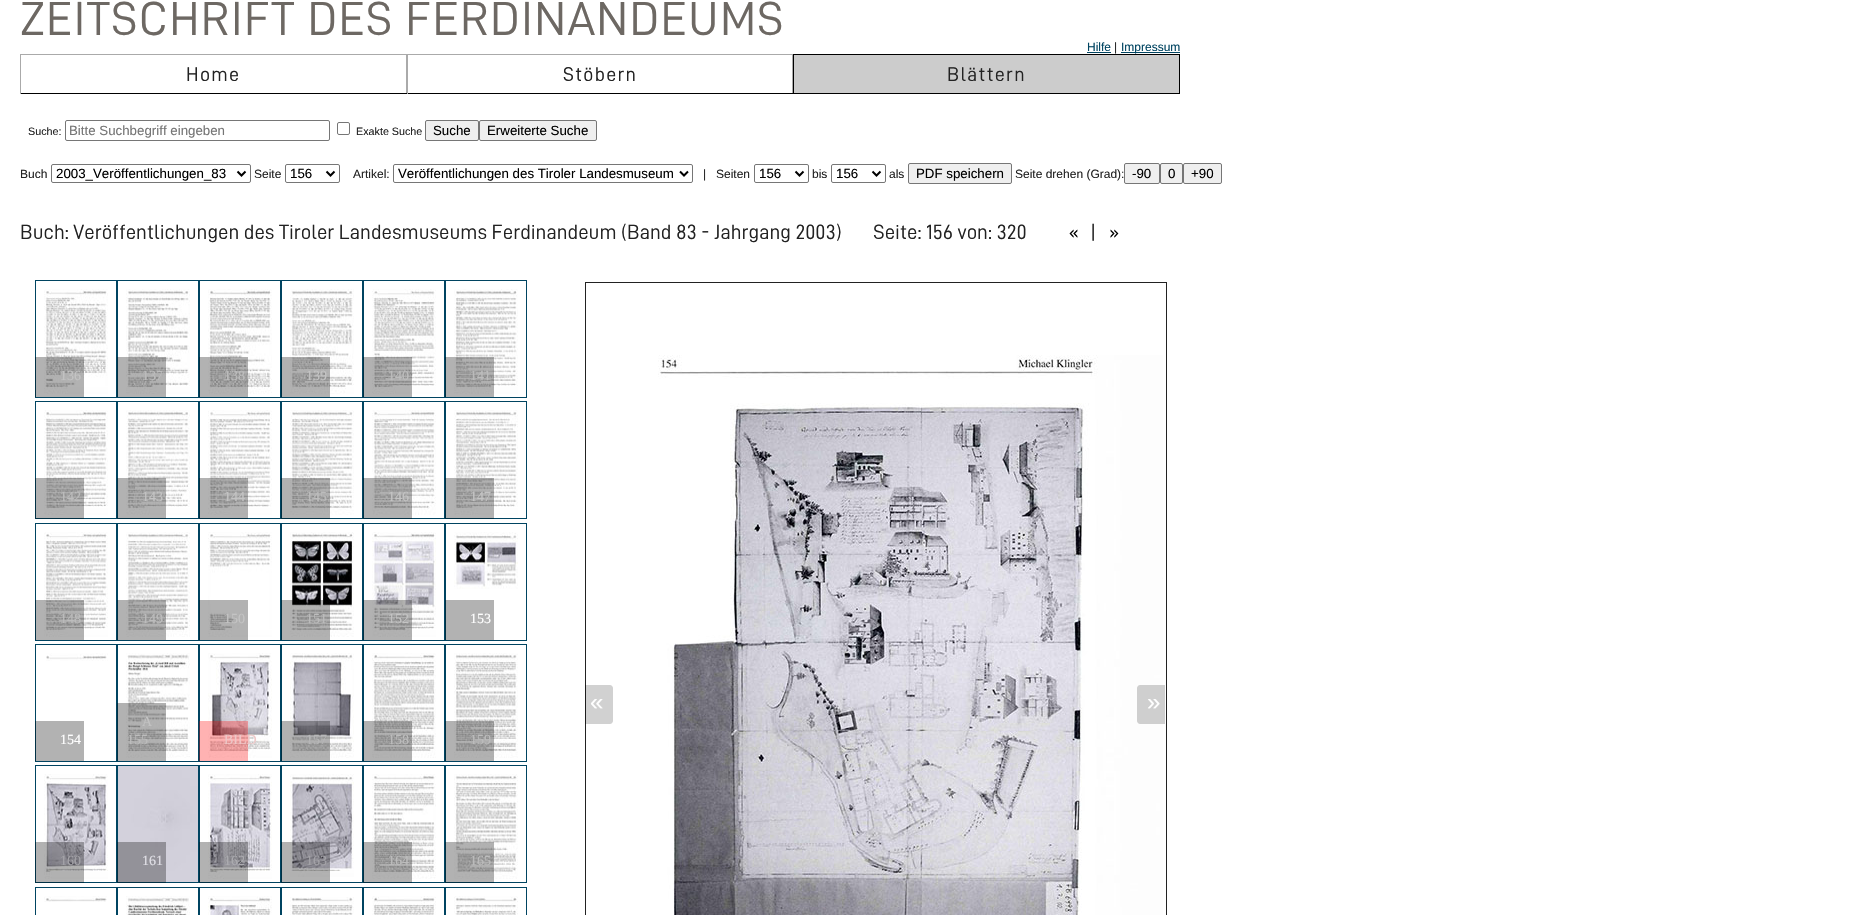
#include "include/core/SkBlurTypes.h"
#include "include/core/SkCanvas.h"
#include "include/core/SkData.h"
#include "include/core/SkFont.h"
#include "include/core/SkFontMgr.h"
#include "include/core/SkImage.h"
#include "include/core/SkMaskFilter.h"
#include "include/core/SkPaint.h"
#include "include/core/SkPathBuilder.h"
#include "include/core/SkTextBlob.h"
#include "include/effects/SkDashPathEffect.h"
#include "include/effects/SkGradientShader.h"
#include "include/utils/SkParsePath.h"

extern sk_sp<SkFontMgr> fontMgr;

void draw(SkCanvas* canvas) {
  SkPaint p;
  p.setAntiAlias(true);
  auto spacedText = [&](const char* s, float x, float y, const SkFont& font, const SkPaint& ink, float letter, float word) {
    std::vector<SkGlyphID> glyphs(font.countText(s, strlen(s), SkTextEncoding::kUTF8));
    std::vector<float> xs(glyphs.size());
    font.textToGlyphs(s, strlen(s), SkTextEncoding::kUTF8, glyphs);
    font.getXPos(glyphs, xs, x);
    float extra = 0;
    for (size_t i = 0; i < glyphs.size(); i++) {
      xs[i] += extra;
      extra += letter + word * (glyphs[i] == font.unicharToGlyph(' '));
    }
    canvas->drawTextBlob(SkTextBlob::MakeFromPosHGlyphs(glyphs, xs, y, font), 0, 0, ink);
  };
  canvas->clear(SK_ColorWHITE);
  p.setColor(SkColorSetRGB(0, 68, 97));
  canvas->drawRect(SkRect::MakeLTRB(1087, 52, 1111, 53), p);
  canvas->drawRect(SkRect::MakeLTRB(1121, 52, 1180, 53), p);
  p.setColor(SkColorSetRGB(170, 170, 170));
  canvas->drawRect(SkRect::MakeLTRB(20, 54, 793, 55), p);
  canvas->drawRect(SkRect::MakeLTRB(406, 54, 407, 94), p);
  p.setColor(SK_ColorBLACK);
  canvas->drawRect(SkRect::MakeLTRB(20, 93, 407, 94), p);
  p.setColor(SkColorSetRGB(170, 170, 170));
  canvas->drawRect(SkRect::MakeLTRB(20, 54, 21, 94), p);
  canvas->drawRect(SkRect::MakeLTRB(792, 54, 793, 94), p);
  p.setColor(SK_ColorBLACK);
  canvas->drawRect(SkRect::MakeLTRB(407, 93, 793, 94), p);
  p.setColor(SkColorSetRGB(170, 170, 170));
  canvas->drawRect(SkRect::MakeLTRB(407, 54, 408, 94), p);
  p.setColor(SkColorSetRGB(204, 204, 204));
  canvas->drawRect(SkRect::MakeLTRB(793.5f, 54.5f, 1179.5f, 93.5f), p);
  p.setStyle(SkPaint::kStroke_Style);
  p.setStrokeWidth(1);
  p.setColor(SK_ColorBLACK);
  canvas->drawRect(SkRect::MakeLTRB(793.5f, 54.5f, 1179.5f, 93.5f), p);
  p.setColor(SkColorSetRGB(118, 118, 118));
  canvas->drawRoundRect(SkRect::MakeLTRB(65.5f, 120.5f, 329.5f, 140.5f), 1.5f, 1.5f, p);
  canvas->drawRoundRect(SkRect::MakeLTRB(337.5f, 122.5f, 349.5f, 134.5f), 1.5f, 1.5f, p);
  p.setStyle(SkPaint::kFill_Style);
  p.setColor(SkColorSetRGB(239, 239, 239));
  canvas->drawRoundRect(SkRect::MakeLTRB(425.5f, 120.5f, 478.5f, 140.5f), 1.5f, 1.5f, p);
  p.setStyle(SkPaint::kStroke_Style);
  p.setColor(SkColorSetRGB(118, 118, 118));
  canvas->drawRoundRect(SkRect::MakeLTRB(425.5f, 120.5f, 478.5f, 140.5f), 1.5f, 1.5f, p);
  p.setStyle(SkPaint::kFill_Style);
  p.setColor(SkColorSetRGB(239, 239, 239));
  canvas->drawRoundRect(SkRect::MakeLTRB(479.5f, 120.5f, 596.5f, 140.5f), 1.5f, 1.5f, p);
  p.setStyle(SkPaint::kStroke_Style);
  p.setColor(SkColorSetRGB(118, 118, 118));
  canvas->drawRoundRect(SkRect::MakeLTRB(479.5f, 120.5f, 596.5f, 140.5f), 1.5f, 1.5f, p);
  canvas->drawRoundRect(SkRect::MakeLTRB(51.5f, 164.5f, 250.5f, 182.5f), 1.5f, 1.5f, p);
  p.setStrokeWidth(2);
  p.setColor(SK_ColorBLACK);
  canvas->drawPath(SkPathBuilder().moveTo(237.5f, 171.5f).lineTo(241.5f, 175.5f).lineTo(245.5f, 171.5f).detach(), p);
  p.setStrokeWidth(1);
  p.setColor(SkColorSetRGB(118, 118, 118));
  canvas->drawRoundRect(SkRect::MakeLTRB(285.5f, 164.5f, 339.5f, 182.5f), 1.5f, 1.5f, p);
  p.setStrokeWidth(2);
  p.setColor(SK_ColorBLACK);
  canvas->drawPath(SkPathBuilder().moveTo(326.5f, 171.5f).lineTo(330.5f, 175.5f).lineTo(334.5f, 171.5f).detach(), p);
  p.setStrokeWidth(1);
  p.setColor(SkColorSetRGB(118, 118, 118));
  canvas->drawRoundRect(SkRect::MakeLTRB(393.5f, 164.5f, 692.5f, 182.5f), 1.5f, 1.5f, p);
  p.setStrokeWidth(2);
  p.setColor(SK_ColorBLACK);
  canvas->drawPath(SkPathBuilder().moveTo(680, 171.5f).lineTo(684, 175.5f).lineTo(688, 171.5f).detach(), p);
  p.setStrokeWidth(1);
  p.setColor(SkColorSetRGB(118, 118, 118));
  canvas->drawRoundRect(SkRect::MakeLTRB(754.5f, 164.5f, 808.5f, 182.5f), 1.5f, 1.5f, p);
  p.setStrokeWidth(2);
  p.setColor(SK_ColorBLACK);
  canvas->drawPath(SkPathBuilder().moveTo(795.5f, 171.5f).lineTo(799.5f, 175.5f).lineTo(803.5f, 171.5f).detach(), p);
  p.setStrokeWidth(1);
  p.setColor(SkColorSetRGB(118, 118, 118));
  canvas->drawRoundRect(SkRect::MakeLTRB(831.5f, 164.5f, 885.5f, 182.5f), 1.5f, 1.5f, p);
  p.setStrokeWidth(2);
  p.setColor(SK_ColorBLACK);
  canvas->drawPath(SkPathBuilder().moveTo(872.5f, 171.5f).lineTo(876.5f, 175.5f).lineTo(880.5f, 171.5f).detach(), p);
  p.setStyle(SkPaint::kFill_Style);
  p.setColor(SkColorSetRGB(239, 239, 239));
  canvas->drawRoundRect(SkRect::MakeLTRB(908.5f, 163.5f, 1011.5f, 183.5f), 1.5f, 1.5f, p);
  p.setStyle(SkPaint::kStroke_Style);
  p.setStrokeWidth(1);
  p.setColor(SkColorSetRGB(118, 118, 118));
  canvas->drawRoundRect(SkRect::MakeLTRB(908.5f, 163.5f, 1011.5f, 183.5f), 1.5f, 1.5f, p);
  p.setStyle(SkPaint::kFill_Style);
  p.setColor(SkColorSetRGB(239, 239, 239));
  canvas->drawRoundRect(SkRect::MakeLTRB(1124.5f, 163.5f, 1159.5f, 183.5f), 1.5f, 1.5f, p);
  p.setStyle(SkPaint::kStroke_Style);
  p.setColor(SkColorSetRGB(118, 118, 118));
  canvas->drawRoundRect(SkRect::MakeLTRB(1124.5f, 163.5f, 1159.5f, 183.5f), 1.5f, 1.5f, p);
  p.setStyle(SkPaint::kFill_Style);
  p.setColor(SkColorSetRGB(239, 239, 239));
  canvas->drawRoundRect(SkRect::MakeLTRB(1160.5f, 163.5f, 1182.5f, 183.5f), 1.5f, 1.5f, p);
  p.setStyle(SkPaint::kStroke_Style);
  p.setColor(SkColorSetRGB(118, 118, 118));
  canvas->drawRoundRect(SkRect::MakeLTRB(1160.5f, 163.5f, 1182.5f, 183.5f), 1.5f, 1.5f, p);
  p.setStyle(SkPaint::kFill_Style);
  p.setColor(SkColorSetRGB(239, 239, 239));
  canvas->drawRoundRect(SkRect::MakeLTRB(1183.5f, 163.5f, 1221.5f, 183.5f), 1.5f, 1.5f, p);
  p.setStyle(SkPaint::kStroke_Style);
  p.setColor(SkColorSetRGB(118, 118, 118));
  canvas->drawRoundRect(SkRect::MakeLTRB(1183.5f, 163.5f, 1221.5f, 183.5f), 1.5f, 1.5f, p);
  p.setColor(SkColorSetRGB(0, 68, 97));
  canvas->drawRect(SkRect::MakeLTRB(35.5f, 280.5f, 116.5f, 397.5f), p);
  canvas->drawImageRect(SkImages::DeferredFromEncodedData(SkData::MakeFromFileName("images/1.png")), SkRect::MakeLTRB(44, 289, 108, 394), SkSamplingOptions());
  p.setStyle(SkPaint::kFill_Style);
  p.setColor(SkColorSetARGB(77, 0, 0, 0));
  canvas->drawRect(SkRect::MakeLTRB(35, 357, 84, 397), p);
  p.setStyle(SkPaint::kStroke_Style);
  p.setColor(SkColorSetRGB(0, 68, 97));
  canvas->drawRect(SkRect::MakeLTRB(117.5f, 280.5f, 198.5f, 397.5f), p);
  canvas->drawImageRect(SkImages::DeferredFromEncodedData(SkData::MakeFromFileName("images/2.png")), SkRect::MakeLTRB(126, 289, 190, 394), SkSamplingOptions());
  p.setStyle(SkPaint::kFill_Style);
  p.setColor(SkColorSetARGB(77, 0, 0, 0));
  canvas->drawRect(SkRect::MakeLTRB(117, 357, 166, 397), p);
  p.setStyle(SkPaint::kStroke_Style);
  p.setColor(SkColorSetRGB(0, 68, 97));
  canvas->drawRect(SkRect::MakeLTRB(199.5f, 280.5f, 280.5f, 397.5f), p);
  canvas->drawImageRect(SkImages::DeferredFromEncodedData(SkData::MakeFromFileName("images/3.png")), SkRect::MakeLTRB(208, 289, 272, 394), SkSamplingOptions());
  p.setStyle(SkPaint::kFill_Style);
  p.setColor(SkColorSetARGB(77, 0, 0, 0));
  canvas->drawRect(SkRect::MakeLTRB(199, 357, 248, 397), p);
  p.setStyle(SkPaint::kStroke_Style);
  p.setColor(SkColorSetRGB(0, 68, 97));
  canvas->drawRect(SkRect::MakeLTRB(281.5f, 280.5f, 362.5f, 397.5f), p);
  canvas->drawImageRect(SkImages::DeferredFromEncodedData(SkData::MakeFromFileName("images/4.png")), SkRect::MakeLTRB(290, 289, 354, 394), SkSamplingOptions());
  p.setStyle(SkPaint::kFill_Style);
  p.setColor(SkColorSetARGB(77, 0, 0, 0));
  canvas->drawRect(SkRect::MakeLTRB(281, 357, 330, 397), p);
  p.setStyle(SkPaint::kStroke_Style);
  p.setColor(SkColorSetRGB(0, 68, 97));
  canvas->drawRect(SkRect::MakeLTRB(363.5f, 280.5f, 444.5f, 397.5f), p);
  canvas->drawImageRect(SkImages::DeferredFromEncodedData(SkData::MakeFromFileName("images/5.png")), SkRect::MakeLTRB(372, 289, 436, 394), SkSamplingOptions());
  p.setStyle(SkPaint::kFill_Style);
  p.setColor(SkColorSetARGB(77, 0, 0, 0));
  canvas->drawRect(SkRect::MakeLTRB(363, 357, 412, 397), p);
  p.setStyle(SkPaint::kStroke_Style);
  p.setColor(SkColorSetRGB(0, 68, 97));
  canvas->drawRect(SkRect::MakeLTRB(445.5f, 280.5f, 526.5f, 397.5f), p);
  canvas->drawImageRect(SkImages::DeferredFromEncodedData(SkData::MakeFromFileName("images/6.png")), SkRect::MakeLTRB(454, 289, 518, 394), SkSamplingOptions());
  p.setStyle(SkPaint::kFill_Style);
  p.setColor(SkColorSetARGB(77, 0, 0, 0));
  canvas->drawRect(SkRect::MakeLTRB(445, 357, 494, 397), p);
  p.setStyle(SkPaint::kStroke_Style);
  p.setColor(SkColorSetRGB(0, 68, 97));
  canvas->drawRect(SkRect::MakeLTRB(35.5f, 401.5f, 116.5f, 518.5f), p);
  canvas->drawImageRect(SkImages::DeferredFromEncodedData(SkData::MakeFromFileName("images/7.png")), SkRect::MakeLTRB(44, 410, 108, 515), SkSamplingOptions());
  p.setStyle(SkPaint::kFill_Style);
  p.setColor(SkColorSetARGB(77, 0, 0, 0));
  canvas->drawRect(SkRect::MakeLTRB(35, 478, 84, 519), p);
  p.setStyle(SkPaint::kStroke_Style);
  p.setColor(SkColorSetRGB(0, 68, 97));
  canvas->drawRect(SkRect::MakeLTRB(117.5f, 401.5f, 198.5f, 518.5f), p);
  canvas->drawImageRect(SkImages::DeferredFromEncodedData(SkData::MakeFromFileName("images/8.png")), SkRect::MakeLTRB(126, 410, 190, 515), SkSamplingOptions());
  p.setStyle(SkPaint::kFill_Style);
  p.setColor(SkColorSetARGB(77, 0, 0, 0));
  canvas->drawRect(SkRect::MakeLTRB(117, 478, 166, 519), p);
  p.setStyle(SkPaint::kStroke_Style);
  p.setColor(SkColorSetRGB(0, 68, 97));
  canvas->drawRect(SkRect::MakeLTRB(199.5f, 401.5f, 280.5f, 518.5f), p);
  canvas->drawImageRect(SkImages::DeferredFromEncodedData(SkData::MakeFromFileName("images/9.png")), SkRect::MakeLTRB(208, 410, 272, 515), SkSamplingOptions());
  p.setStyle(SkPaint::kFill_Style);
  p.setColor(SkColorSetARGB(77, 0, 0, 0));
  canvas->drawRect(SkRect::MakeLTRB(199, 478, 248, 519), p);
  p.setStyle(SkPaint::kStroke_Style);
  p.setColor(SkColorSetRGB(0, 68, 97));
  canvas->drawRect(SkRect::MakeLTRB(281.5f, 401.5f, 362.5f, 518.5f), p);
  canvas->drawImageRect(SkImages::DeferredFromEncodedData(SkData::MakeFromFileName("images/10.png")), SkRect::MakeLTRB(290, 410, 354, 515), SkSamplingOptions());
  p.setStyle(SkPaint::kFill_Style);
  p.setColor(SkColorSetARGB(77, 0, 0, 0));
  canvas->drawRect(SkRect::MakeLTRB(281, 478, 330, 519), p);
  p.setStyle(SkPaint::kStroke_Style);
  p.setColor(SkColorSetRGB(0, 68, 97));
  canvas->drawRect(SkRect::MakeLTRB(363.5f, 401.5f, 444.5f, 518.5f), p);
  canvas->drawImageRect(SkImages::DeferredFromEncodedData(SkData::MakeFromFileName("images/11.png")), SkRect::MakeLTRB(372, 410, 436, 515), SkSamplingOptions());
  p.setStyle(SkPaint::kFill_Style);
  p.setColor(SkColorSetARGB(77, 0, 0, 0));
  canvas->drawRect(SkRect::MakeLTRB(363, 478, 412, 519), p);
  p.setStyle(SkPaint::kStroke_Style);
  p.setColor(SkColorSetRGB(0, 68, 97));
  canvas->drawRect(SkRect::MakeLTRB(445.5f, 401.5f, 526.5f, 518.5f), p);
  canvas->drawImageRect(SkImages::DeferredFromEncodedData(SkData::MakeFromFileName("images/12.png")), SkRect::MakeLTRB(454, 410, 518, 515), SkSamplingOptions());
  p.setStyle(SkPaint::kFill_Style);
  p.setColor(SkColorSetARGB(77, 0, 0, 0));
  canvas->drawRect(SkRect::MakeLTRB(445, 478, 494, 519), p);
  p.setStyle(SkPaint::kStroke_Style);
  p.setColor(SkColorSetRGB(0, 68, 97));
  canvas->drawRect(SkRect::MakeLTRB(35.5f, 523.5f, 116.5f, 640.5f), p);
  canvas->drawImageRect(SkImages::DeferredFromEncodedData(SkData::MakeFromFileName("images/13.png")), SkRect::MakeLTRB(44, 532, 108, 637), SkSamplingOptions());
  p.setStyle(SkPaint::kFill_Style);
  p.setColor(SkColorSetARGB(77, 0, 0, 0));
  canvas->drawRect(SkRect::MakeLTRB(35, 600, 84, 640), p);
  p.setStyle(SkPaint::kStroke_Style);
  p.setColor(SkColorSetRGB(0, 68, 97));
  canvas->drawRect(SkRect::MakeLTRB(117.5f, 523.5f, 198.5f, 640.5f), p);
  canvas->drawImageRect(SkImages::DeferredFromEncodedData(SkData::MakeFromFileName("images/14.png")), SkRect::MakeLTRB(126, 532, 190, 637), SkSamplingOptions());
  p.setStyle(SkPaint::kFill_Style);
  p.setColor(SkColorSetARGB(77, 0, 0, 0));
  canvas->drawRect(SkRect::MakeLTRB(117, 600, 166, 640), p);
  p.setStyle(SkPaint::kStroke_Style);
  p.setColor(SkColorSetRGB(0, 68, 97));
  canvas->drawRect(SkRect::MakeLTRB(199.5f, 523.5f, 280.5f, 640.5f), p);
  canvas->drawImageRect(SkImages::DeferredFromEncodedData(SkData::MakeFromFileName("images/15.png")), SkRect::MakeLTRB(208, 532, 272, 637), SkSamplingOptions());
  p.setStyle(SkPaint::kFill_Style);
  p.setColor(SkColorSetARGB(77, 0, 0, 0));
  canvas->drawRect(SkRect::MakeLTRB(199, 600, 248, 640), p);
  p.setStyle(SkPaint::kStroke_Style);
  p.setColor(SkColorSetRGB(0, 68, 97));
  canvas->drawRect(SkRect::MakeLTRB(281.5f, 523.5f, 362.5f, 640.5f), p);
  canvas->drawImageRect(SkImages::DeferredFromEncodedData(SkData::MakeFromFileName("images/16.png")), SkRect::MakeLTRB(290, 532, 354, 637), SkSamplingOptions());
  p.setStyle(SkPaint::kFill_Style);
  p.setColor(SkColorSetARGB(77, 0, 0, 0));
  canvas->drawRect(SkRect::MakeLTRB(281, 600, 330, 640), p);
  p.setStyle(SkPaint::kStroke_Style);
  p.setColor(SkColorSetRGB(0, 68, 97));
  canvas->drawRect(SkRect::MakeLTRB(363.5f, 523.5f, 444.5f, 640.5f), p);
  canvas->drawImageRect(SkImages::DeferredFromEncodedData(SkData::MakeFromFileName("images/17.png")), SkRect::MakeLTRB(372, 532, 436, 637), SkSamplingOptions());
  p.setStyle(SkPaint::kFill_Style);
  p.setColor(SkColorSetARGB(77, 0, 0, 0));
  canvas->drawRect(SkRect::MakeLTRB(363, 600, 412, 640), p);
  p.setStyle(SkPaint::kStroke_Style);
  p.setColor(SkColorSetRGB(0, 68, 97));
  canvas->drawRect(SkRect::MakeLTRB(445.5f, 523.5f, 526.5f, 640.5f), p);
  canvas->drawImageRect(SkImages::DeferredFromEncodedData(SkData::MakeFromFileName("images/18.png")), SkRect::MakeLTRB(454, 532, 518, 589), SkSamplingOptions());
  p.setStyle(SkPaint::kFill_Style);
  p.setColor(SkColorSetARGB(77, 0, 0, 0));
  canvas->drawRect(SkRect::MakeLTRB(445, 600, 494, 640), p);
  p.setStyle(SkPaint::kStroke_Style);
  p.setColor(SkColorSetRGB(0, 68, 97));
  canvas->drawRect(SkRect::MakeLTRB(35.5f, 644.5f, 116.5f, 761.5f), p);
  canvas->drawImageRect(SkImages::DeferredFromEncodedData(SkData::MakeFromFileName("images/19.png")), SkRect::MakeLTRB(46, 653, 108, 661), SkSamplingOptions());
  p.setStyle(SkPaint::kFill_Style);
  p.setColor(SkColorSetARGB(77, 0, 0, 0));
  canvas->drawRect(SkRect::MakeLTRB(35, 721, 84, 761), p);
  p.setStyle(SkPaint::kStroke_Style);
  p.setColor(SkColorSetRGB(0, 68, 97));
  canvas->drawRect(SkRect::MakeLTRB(117.5f, 644.5f, 198.5f, 761.5f), p);
  canvas->drawImageRect(SkImages::DeferredFromEncodedData(SkData::MakeFromFileName("images/20.png")), SkRect::MakeLTRB(126, 653, 190, 758), SkSamplingOptions());
  p.setStyle(SkPaint::kFill_Style);
  p.setColor(SkColorSetARGB(77, 0, 0, 0));
  canvas->drawRect(SkRect::MakeLTRB(117, 703, 166, 761), p);
  p.setStyle(SkPaint::kStroke_Style);
  p.setColor(SkColorSetRGB(0, 68, 97));
  canvas->drawRect(SkRect::MakeLTRB(199.5f, 644.5f, 280.5f, 761.5f), p);
  canvas->drawImageRect(SkImages::DeferredFromEncodedData(SkData::MakeFromFileName("images/21.png")), SkRect::MakeLTRB(208, 653, 272, 758), SkSamplingOptions());
  p.setStyle(SkPaint::kFill_Style);
  p.setColor(SkColorSetARGB(77, 255, 0, 0));
  canvas->drawRect(SkRect::MakeLTRB(199, 721, 248, 761), p);
  p.setStyle(SkPaint::kStroke_Style);
  p.setColor(SkColorSetRGB(0, 68, 97));
  canvas->drawRect(SkRect::MakeLTRB(281.5f, 644.5f, 362.5f, 761.5f), p);
  canvas->drawImageRect(SkImages::DeferredFromEncodedData(SkData::MakeFromFileName("images/22.png")), SkRect::MakeLTRB(290, 653, 354, 758), SkSamplingOptions());
  p.setStyle(SkPaint::kFill_Style);
  p.setColor(SkColorSetARGB(77, 0, 0, 0));
  canvas->drawRect(SkRect::MakeLTRB(281, 721, 330, 761), p);
  p.setStyle(SkPaint::kStroke_Style);
  p.setColor(SkColorSetRGB(0, 68, 97));
  canvas->drawRect(SkRect::MakeLTRB(363.5f, 644.5f, 444.5f, 761.5f), p);
  canvas->drawImageRect(SkImages::DeferredFromEncodedData(SkData::MakeFromFileName("images/23.png")), SkRect::MakeLTRB(372, 653, 436, 758), SkSamplingOptions());
  p.setStyle(SkPaint::kFill_Style);
  p.setColor(SkColorSetARGB(77, 0, 0, 0));
  canvas->drawRect(SkRect::MakeLTRB(363, 721, 412, 761), p);
  p.setStyle(SkPaint::kStroke_Style);
  p.setColor(SkColorSetRGB(0, 68, 97));
  canvas->drawRect(SkRect::MakeLTRB(445.5f, 644.5f, 526.5f, 761.5f), p);
  canvas->drawImageRect(SkImages::DeferredFromEncodedData(SkData::MakeFromFileName("images/24.png")), SkRect::MakeLTRB(454, 653, 518, 758), SkSamplingOptions());
  p.setStyle(SkPaint::kFill_Style);
  p.setColor(SkColorSetARGB(77, 0, 0, 0));
  canvas->drawRect(SkRect::MakeLTRB(445, 721, 494, 761), p);
  p.setStyle(SkPaint::kStroke_Style);
  p.setColor(SkColorSetRGB(0, 68, 97));
  canvas->drawRect(SkRect::MakeLTRB(35.5f, 765.5f, 116.5f, 882.5f), p);
  canvas->drawImageRect(SkImages::DeferredFromEncodedData(SkData::MakeFromFileName("images/25.png")), SkRect::MakeLTRB(44, 774, 108, 879), SkSamplingOptions());
  p.setStyle(SkPaint::kFill_Style);
  p.setColor(SkColorSetARGB(77, 0, 0, 0));
  canvas->drawRect(SkRect::MakeLTRB(35, 842, 84, 883), p);
  p.setStyle(SkPaint::kStroke_Style);
  p.setColor(SkColorSetRGB(0, 68, 97));
  canvas->drawRect(SkRect::MakeLTRB(117.5f, 765.5f, 198.5f, 882.5f), p);
  canvas->drawImageRect(SkImages::DeferredFromEncodedData(SkData::MakeFromFileName("images/26.png")), SkRect::MakeLTRB(118, 766, 198, 882), SkSamplingOptions());
  p.setStyle(SkPaint::kFill_Style);
  p.setColor(SkColorSetARGB(77, 0, 0, 0));
  canvas->drawRect(SkRect::MakeLTRB(117, 842, 166, 883), p);
  p.setStyle(SkPaint::kStroke_Style);
  p.setColor(SkColorSetRGB(0, 68, 97));
  canvas->drawRect(SkRect::MakeLTRB(199.5f, 765.5f, 280.5f, 882.5f), p);
  canvas->drawImageRect(SkImages::DeferredFromEncodedData(SkData::MakeFromFileName("images/27.png")), SkRect::MakeLTRB(208, 774, 272, 879), SkSamplingOptions());
  p.setStyle(SkPaint::kFill_Style);
  p.setColor(SkColorSetARGB(77, 0, 0, 0));
  canvas->drawRect(SkRect::MakeLTRB(199, 842, 248, 883), p);
  p.setStyle(SkPaint::kStroke_Style);
  p.setColor(SkColorSetRGB(0, 68, 97));
  canvas->drawRect(SkRect::MakeLTRB(281.5f, 765.5f, 362.5f, 882.5f), p);
  canvas->drawImageRect(SkImages::DeferredFromEncodedData(SkData::MakeFromFileName("images/28.png")), SkRect::MakeLTRB(290, 774, 354, 877), SkSamplingOptions());
  p.setStyle(SkPaint::kFill_Style);
  p.setColor(SkColorSetARGB(77, 0, 0, 0));
  canvas->drawRect(SkRect::MakeLTRB(281, 842, 330, 883), p);
  p.setStyle(SkPaint::kStroke_Style);
  p.setColor(SkColorSetRGB(0, 68, 97));
  canvas->drawRect(SkRect::MakeLTRB(363.5f, 765.5f, 444.5f, 882.5f), p);
  canvas->drawImageRect(SkImages::DeferredFromEncodedData(SkData::MakeFromFileName("images/29.png")), SkRect::MakeLTRB(372, 774, 436, 879), SkSamplingOptions());
  p.setStyle(SkPaint::kFill_Style);
  p.setColor(SkColorSetARGB(77, 0, 0, 0));
  canvas->drawRect(SkRect::MakeLTRB(363, 842, 412, 883), p);
  p.setStyle(SkPaint::kStroke_Style);
  p.setColor(SkColorSetRGB(0, 68, 97));
  canvas->drawRect(SkRect::MakeLTRB(445.5f, 765.5f, 526.5f, 882.5f), p);
  canvas->drawImageRect(SkImages::DeferredFromEncodedData(SkData::MakeFromFileName("images/30.png")), SkRect::MakeLTRB(454, 774, 518, 879), SkSamplingOptions());
  p.setStyle(SkPaint::kFill_Style);
  p.setColor(SkColorSetARGB(77, 0, 0, 0));
  canvas->drawRect(SkRect::MakeLTRB(445, 842, 494, 883), p);
  p.setStyle(SkPaint::kStroke_Style);
  p.setColor(SkColorSetRGB(0, 68, 97));
  canvas->drawRect(SkRect::MakeLTRB(35.5f, 887.5f, 116.5f, 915.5f), p);
  canvas->drawImageRect(SkImages::DeferredFromEncodedData(SkData::MakeFromFileName("images/31.png")), SkRect::MakeLTRB(44, 896, 107, 902), SkSamplingOptions());
  canvas->drawRect(SkRect::MakeLTRB(117.5f, 887.5f, 198.5f, 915.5f), p);
  canvas->drawImageRect(SkImages::DeferredFromEncodedData(SkData::MakeFromFileName("images/32.png")), SkRect::MakeLTRB(126, 896, 190, 915), SkSamplingOptions());
  canvas->drawRect(SkRect::MakeLTRB(199.5f, 887.5f, 280.5f, 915.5f), p);
  canvas->drawImageRect(SkImages::DeferredFromEncodedData(SkData::MakeFromFileName("images/33.png")), SkRect::MakeLTRB(208, 896, 272, 915), SkSamplingOptions());
  canvas->drawRect(SkRect::MakeLTRB(281.5f, 887.5f, 362.5f, 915.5f), p);
  canvas->drawImageRect(SkImages::DeferredFromEncodedData(SkData::MakeFromFileName("images/34.png")), SkRect::MakeLTRB(290, 897, 354, 915), SkSamplingOptions());
  canvas->drawRect(SkRect::MakeLTRB(363.5f, 887.5f, 444.5f, 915.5f), p);
  canvas->drawImageRect(SkImages::DeferredFromEncodedData(SkData::MakeFromFileName("images/35.png")), SkRect::MakeLTRB(372, 896, 436, 915), SkSamplingOptions());
  canvas->drawRect(SkRect::MakeLTRB(445.5f, 887.5f, 526.5f, 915.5f), p);
  canvas->drawImageRect(SkImages::DeferredFromEncodedData(SkData::MakeFromFileName("images/36.png")), SkRect::MakeLTRB(454, 896, 518, 915), SkSamplingOptions());
  p.setColor(SkColorSetRGB(34, 34, 34));
  canvas->drawRect(SkRect::MakeLTRB(585.5f, 282.5f, 1166.5f, 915.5f), p);
  p.setStyle(SkPaint::kFill_Style);
  p.setColor(SkColorSetARGB(46, 0, 0, 0));
  canvas->drawPath(SkPathBuilder().moveTo(585, 685).lineTo(610, 685).cubicTo(611.5f, 685, 613, 686.5f, 613, 688).lineTo(613, 721).cubicTo(613, 722.5f, 611.5f, 724, 610, 724).lineTo(585, 724).close().detach(), p);
  canvas->drawImageRect(SkImages::DeferredFromEncodedData(SkData::MakeFromFileName("images/37.png")), SkRect::MakeLTRB(658, 355, 1163, 915), SkSamplingOptions());
  p.setColor(SkColorSetRGB(207, 207, 207));
  canvas->drawPath(SkPathBuilder().moveTo(1140, 685).lineTo(1165, 685).lineTo(1165, 724).lineTo(1140, 724).cubicTo(1138.5f, 724, 1137, 722.5f, 1137, 721).lineTo(1137, 688).cubicTo(1137, 686.5f, 1138.5f, 685, 1140, 685).close().detach(), p);
  SkFont font1(fontMgr->matchFamilyStyle("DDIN", SkFontStyle::Normal()), 48);
  font1.setSubpixel(true);
  p.setColor(SkColorSetRGB(109, 104, 99));
  spacedText("ZEITSCHRIFT DES FERDINANDEUMS", 20, 35, font1, p, 1.3f, 0);
  SkFont font2(fontMgr->matchFamilyStyle("Liberation Sans", SkFontStyle::Normal()), 12);
  font2.setSubpixel(true);
  p.setColor(SkColorSetRGB(0, 68, 97));
  canvas->drawString("Hilfe", 1087, 51, font2, p);
  p.setColor(SkColorSetRGB(34, 34, 34));
  canvas->drawString("|", 1114, 51, font2, p);
  p.setColor(SkColorSetRGB(0, 68, 97));
  canvas->drawString("Impressum", 1121, 51, font2, p);
  SkFont font3(fontMgr->matchFamilyStyle("DDIN", SkFontStyle::Normal()), 20);
  font3.setSubpixel(true);
  p.setColor(SkColorSetRGB(34, 34, 34));
  spacedText("Home", 186, 81, font3, p, 1.3f, 0);
  spacedText("Stöbern", 563, 81, font3, p, 1.3f, 0);
  spacedText("Blättern", 947, 81, font3, p, 1.3f, 0);
  SkFont font4(fontMgr->matchFamilyStyle("Liberation Sans", SkFontStyle::Normal()), 10.75f);
  font4.setSubpixel(true);
  canvas->drawString("Suche:", 28, 135, font4, p);
  SkFont font5(fontMgr->matchFamilyStyle("Liberation Sans", SkFontStyle::Normal()), 13.3f);
  font5.setSubpixel(true);
  p.setColor(SkColorSetRGB(117, 117, 117));
  canvas->drawString("Bitte Suchbegriff eingeben", 69, 135, font5, p);
  p.setColor(SkColorSetRGB(34, 34, 34));
  canvas->drawString("Exakte Suche", 356, 135, font4, p);
  p.setColor(SK_ColorBLACK);
  canvas->drawString("Suche", 433, 135, font5, p);
  canvas->drawString("Erweiterte Suche", 487, 135, font5, p);
  p.setColor(SkColorSetRGB(34, 34, 34));
  canvas->drawString("Buch", 20, 178, font2, p);
  p.setColor(SK_ColorBLACK);
  canvas->drawString("2003_Veröffentlichungen_83", 56, 178, font5, p);
  p.setColor(SkColorSetRGB(34, 34, 34));
  canvas->drawString("Seite", 254, 178, font2, p);
  p.setColor(SK_ColorBLACK);
  canvas->drawString("156", 290, 178, font5, p);
  p.setColor(SkColorSetRGB(34, 34, 34));
  canvas->drawString("Artikel:", 353, 178, font2, p);
  p.setColor(SK_ColorBLACK);
  canvas->drawString("Veröffentlichungen des Tiroler Landesmuseum", 398, 178, font5, p);
  p.setColor(SkColorSetRGB(34, 34, 34));
  canvas->drawString("|", 703, 178, font2, p);
  canvas->drawString("Seiten", 716, 178, font2, p);
  p.setColor(SK_ColorBLACK);
  canvas->drawString("156", 759, 178, font5, p);
  p.setColor(SkColorSetRGB(34, 34, 34));
  canvas->drawString("bis", 812, 178, font2, p);
  p.setColor(SK_ColorBLACK);
  canvas->drawString("156", 836, 178, font5, p);
  p.setColor(SkColorSetRGB(34, 34, 34));
  canvas->drawString("als", 889, 178, font2, p);
  p.setColor(SK_ColorBLACK);
  canvas->drawString("PDF speichern", 916, 178, font5, p);
  p.setColor(SkColorSetRGB(34, 34, 34));
  canvas->drawString("Seite drehen (Grad):", 1015, 178, font2, p);
  p.setColor(SK_ColorBLACK);
  canvas->drawString("-90", 1132, 178, font5, p);
  canvas->drawString("0", 1168, 178, font5, p);
  canvas->drawString("+90", 1191, 178, font5, p);
  SkFont font6(fontMgr->matchFamilyStyle("DDIN", SkFontStyle::Normal()), 20.75f);
  font6.setSubpixel(true);
  p.setColor(SkColorSetRGB(34, 34, 34));
  canvas->drawString("Buch: Veröffentlichungen des Tiroler Landesmuseums Ferdinandeum (Band 83 - Jahrgang 2003)       Seite: 156 von: 320", 20, 239, font6, p);
  p.setColor(SK_ColorBLACK);
  canvas->drawString("«", 1069, 239, font6, p);
  p.setColor(SkColorSetRGB(34, 34, 34));
  canvas->drawString("|", 1090, 239, font6, p);
  p.setColor(SK_ColorBLACK);
  canvas->drawString("»", 1109, 239, font6, p);
  SkFont font7(fontMgr->matchFamilyStyle("Liberation Serif", SkFontStyle::Normal()), 14);
  font7.setSubpixel(true);
  p.setColor(SkColorSetRGB(196, 196, 196));
  canvas->drawString("136", 60, 380, font7, p);
  p.setColor(SkColorSetRGB(189, 189, 189));
  canvas->drawString("137", 142, 380, font7, p);
  canvas->drawString("138", 224, 380, font7, p);
  p.setColor(SkColorSetRGB(196, 196, 196));
  canvas->drawString("139", 306, 380, font7, p);
  p.setColor(SkColorSetRGB(189, 189, 189));
  canvas->drawString("140", 388, 380, font7, p);
  canvas->drawString("141", 470, 380, font7, p);
  canvas->drawString("142", 60, 501, font7, p);
  p.setColor(SkColorSetRGB(196, 196, 196));
  canvas->drawString("143", 142, 501, font7, p);
  canvas->drawString("144", 224, 501, font7, p);
  p.setColor(SkColorSetRGB(189, 189, 189));
  canvas->drawString("145", 306, 501, font7, p);
  p.setColor(SkColorSetRGB(196, 196, 196));
  canvas->drawString("146", 388, 501, font7, p);
  canvas->drawString("147", 470, 501, font7, p);
  p.setColor(SkColorSetRGB(189, 189, 189));
  canvas->drawString("148", 60, 623, font7, p);
  canvas->drawString("149", 142, 623, font7, p);
  p.setColor(SkColorSetRGB(196, 196, 196));
  canvas->drawString("150", 224, 623, font7, p);
  p.setColor(SkColorSetRGB(189, 189, 189));
  canvas->drawString("151", 306, 623, font7, p);
  p.setColor(SkColorSetRGB(196, 196, 196));
  canvas->drawString("152", 388, 623, font7, p);
  p.setColor(SK_ColorWHITE);
  canvas->drawString("153", 470, 623, font7, p);
  canvas->drawString("154", 60, 744, font7, p);
  p.setColor(SkColorSetRGB(196, 196, 196));
  canvas->drawString("A", 142, 726, font7, p);
  p.setColor(SkColorSetRGB(189, 189, 189));
  canvas->drawString("155", 127, 744, font7, p);
  p.setColor(SkColorSetRGB(238, 200, 200));
  canvas->drawString("BILD", 224, 744, font7, p);
  p.setColor(SkColorSetRGB(183, 183, 184));
  canvas->drawString("157", 306, 744, font7, p);
  p.setColor(SkColorSetRGB(189, 189, 189));
  canvas->drawString("158", 388, 744, font7, p);
  canvas->drawString("159", 470, 744, font7, p);
  p.setColor(SkColorSetRGB(164, 163, 168));
  canvas->drawString("160", 60, 865, font7, p);
  p.setColor(SkColorSetRGB(224, 223, 230));
  canvas->drawString("161", 142, 865, font7, p);
  p.setColor(SkColorSetRGB(172, 172, 176));
  canvas->drawString("162", 224, 865, font7, p);
  p.setColor(SkColorSetRGB(164, 163, 168));
  canvas->drawString("163", 306, 865, font7, p);
  p.setColor(SkColorSetRGB(189, 189, 189));
  canvas->drawString("164", 388, 865, font7, p);
  canvas->drawString("165", 470, 865, font7, p);
  SkFont font8(fontMgr->matchFamilyStyle("Liberation Sans", SkFontStyle::Normal()), 24);
  font8.setSubpixel(true);
  p.setColor(SK_ColorWHITE);
  canvas->drawString("«", 590, 710, font8, p);
  canvas->drawString("»", 1147, 710, font8, p);
}
